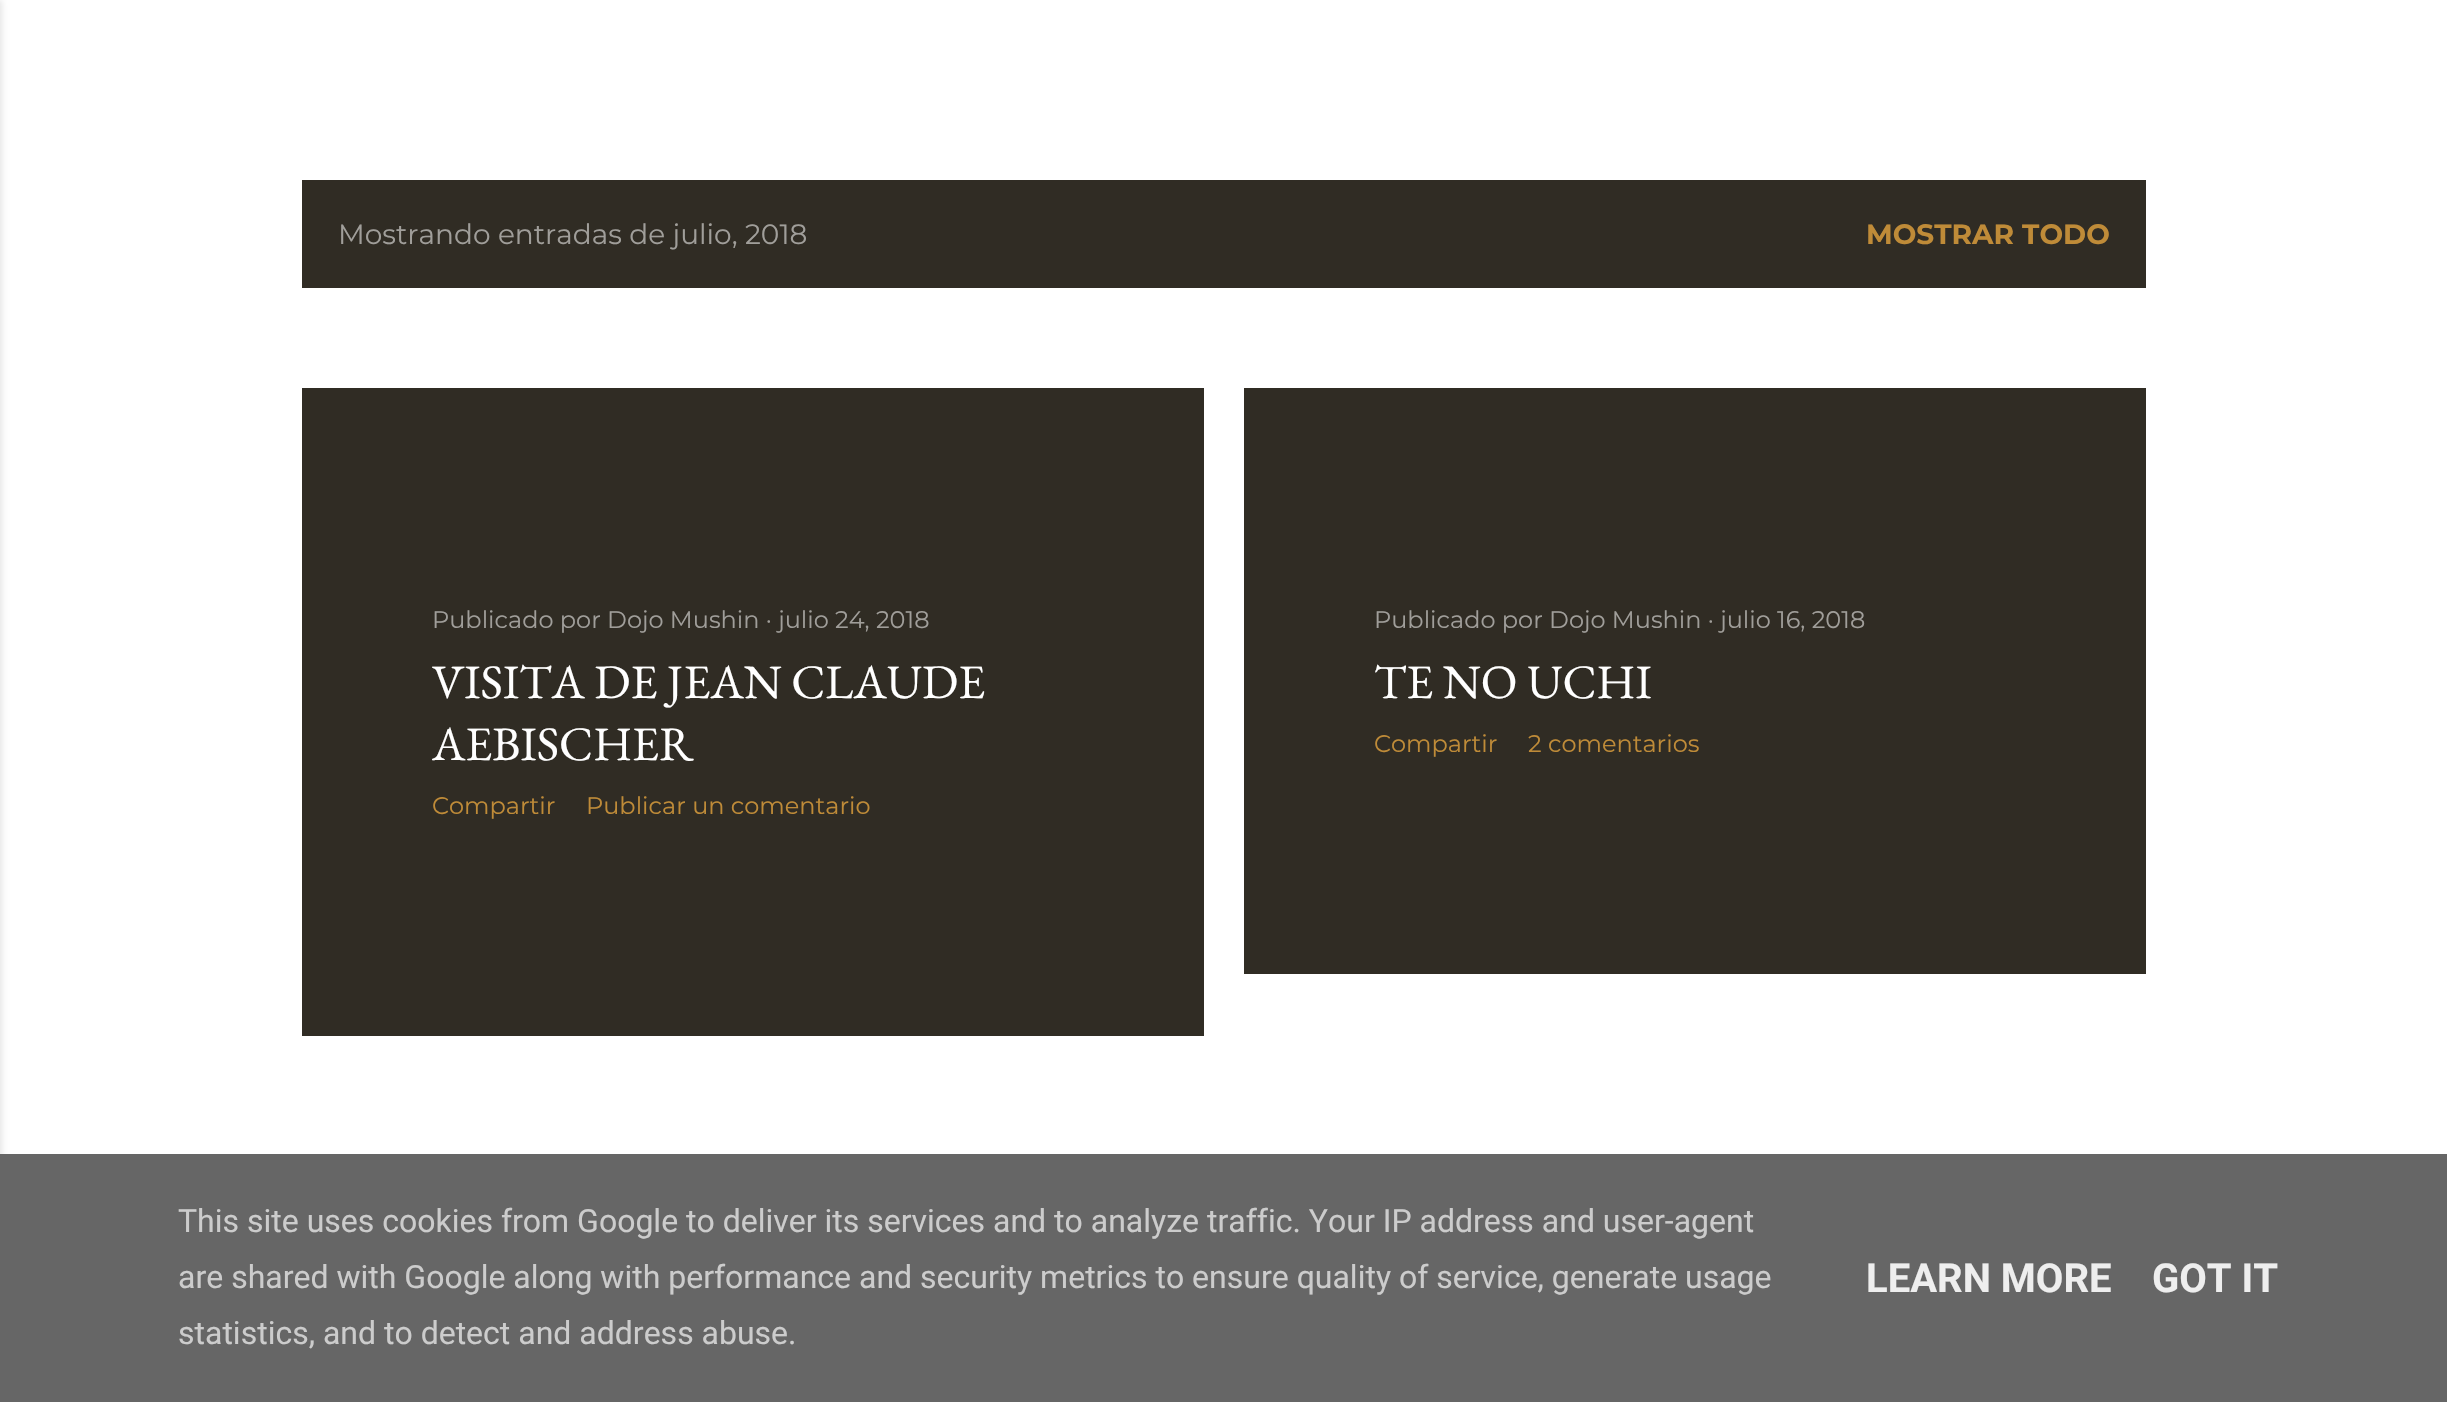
#include "include/core/SkBlurTypes.h"
#include "include/core/SkCanvas.h"
#include "include/core/SkData.h"
#include "include/core/SkFont.h"
#include "include/core/SkFontMgr.h"
#include "include/core/SkImage.h"
#include "include/core/SkMaskFilter.h"
#include "include/core/SkPaint.h"
#include "include/core/SkPathBuilder.h"
#include "include/core/SkTextBlob.h"
#include "include/effects/SkDashPathEffect.h"
#include "include/effects/SkGradientShader.h"
#include "include/utils/SkParsePath.h"

extern sk_sp<SkFontMgr> fontMgr;

void draw(SkCanvas* canvas) {
  SkPaint p;
  p.setAntiAlias(true);
  canvas->clear(SK_ColorWHITE);
  p.setColor(SkColorSetARGB(26, 0, 0, 0));
  p.setMaskFilter(SkMaskFilter::MakeBlur(kNormal_SkBlurStyle, 3));
  canvas->drawRect(SkRect::MakeLTRB(-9, 0, 2, 1402), p);
  p.setMaskFilter(nullptr);
  p.setColor(SkColorSetRGB(48, 44, 36));
  canvas->drawRect(SkRect::MakeLTRB(302, 180, 2146, 288), p);
  canvas->drawRect(SkRect::MakeLTRB(302, 388, 1204, 1036), p);
  canvas->drawRect(SkRect::MakeLTRB(1244, 388, 2146, 974), p);
  p.setColor(SkColorSetRGB(102, 102, 102));
  canvas->drawRect(SkRect::MakeLTRB(0, 1154, 2447, 1402), p);
  SkFont font1(fontMgr->matchFamilyStyle("Montserrat", SkFontStyle::Normal()), 28);
  font1.setSubpixel(true);
  p.setColor(SkColorSetRGB(160, 158, 154));
  canvas->drawString("Mostrando entradas de julio, 2018", 338, 244, font1, p);
  SkFont font2(fontMgr->matchFamilyStyle("Montserrat", SkFontStyle::Bold()), 28);
  font2.setSubpixel(true);
  p.setColor(SkColorSetRGB(191, 139, 56));
  canvas->drawString("MOSTRAR TODO", 1866, 244, font2, p);
  SkFont font3(fontMgr->matchFamilyStyle("Montserrat", SkFontStyle::Normal()), 24);
  font3.setSubpixel(true);
  p.setColor(SkColorSetRGB(160, 158, 154));
  canvas->drawString("Publicado por Dojo Mushin · julio 24, 2018", 432, 628, font3, p);
  SkFont font4(fontMgr->matchFamilyStyle("EB Garamond", SkFontStyle::Normal()), 48);
  font4.setSubpixel(true);
  p.setColor(SK_ColorWHITE);
  canvas->drawString("VISITA DE JEAN CLAUDE", 432, 698, font4, p);
  canvas->drawString("AEBISCHER", 432, 760, font4, p);
  p.setColor(SkColorSetRGB(191, 139, 56));
  canvas->drawString("Compartir", 432, 814, font3, p);
  canvas->drawString("Publicar un comentario", 586, 814, font3, p);
  p.setColor(SkColorSetRGB(160, 158, 154));
  canvas->drawString("Publicado por Dojo Mushin · julio 16, 2018", 1374, 628, font3, p);
  p.setColor(SK_ColorWHITE);
  canvas->drawString("TE NO UCHI", 1374, 698, font4, p);
  p.setColor(SkColorSetRGB(191, 139, 56));
  canvas->drawString("Compartir", 1374, 752, font3, p);
  canvas->drawString("2 comentarios", 1528, 752, font3, p);
  SkFont font5(fontMgr->matchFamilyStyle("Roboto", SkFontStyle::Normal()), 32);
  font5.setSubpixel(true);
  p.setColor(SkColorSetRGB(204, 204, 204));
  canvas->drawString("This site uses cookies from Google to deliver its services and to analyze traffic. Your IP address and user-agent", 178, 1232, font5, p);
  canvas->drawString("are shared with Google along with performance and security metrics to ensure quality of service, generate usage", 178, 1288, font5, p);
  canvas->drawString("statistics, and to detect and address abuse.", 178, 1344, font5, p);
  SkFont font6(fontMgr->matchFamilyStyle("Roboto", SkFontStyle::Bold()), 40);
  font6.setSubpixel(true);
  p.setColor(SkColorSetRGB(238, 238, 238));
  canvas->drawString("LEARN MORE", 1866, 1292, font6, p);
  canvas->drawString("GOT IT", 2152, 1292, font6, p);
}
